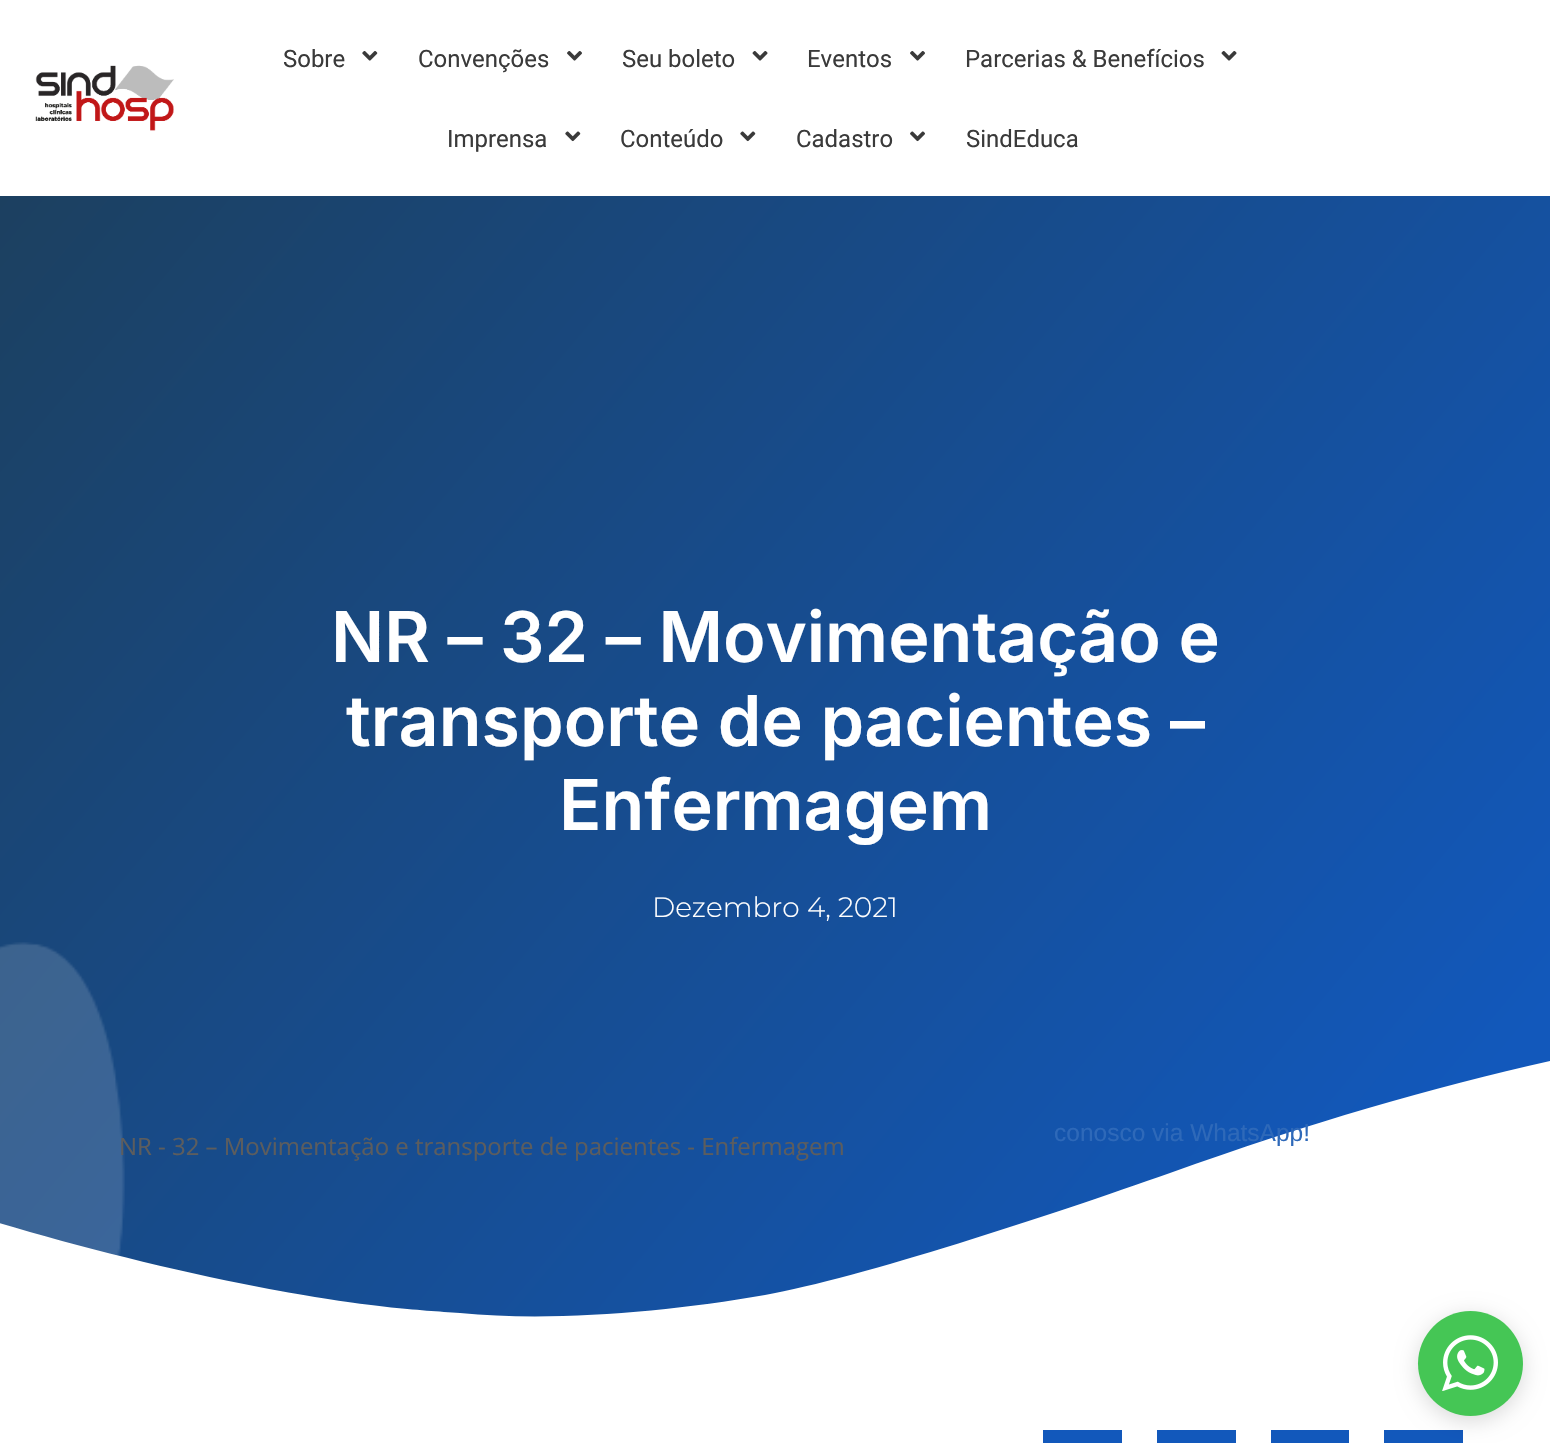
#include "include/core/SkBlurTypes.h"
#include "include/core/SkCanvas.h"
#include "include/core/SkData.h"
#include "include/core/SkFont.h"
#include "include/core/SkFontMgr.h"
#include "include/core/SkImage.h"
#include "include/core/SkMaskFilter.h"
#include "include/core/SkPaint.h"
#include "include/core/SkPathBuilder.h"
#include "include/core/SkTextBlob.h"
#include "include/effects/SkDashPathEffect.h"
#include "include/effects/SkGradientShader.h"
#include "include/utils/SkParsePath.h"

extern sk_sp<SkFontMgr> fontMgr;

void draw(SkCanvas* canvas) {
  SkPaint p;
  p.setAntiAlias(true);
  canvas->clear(SK_ColorWHITE);
  canvas->drawImageRect(SkImages::DeferredFromEncodedData(SkData::MakeFromFileName("images/1.png")), SkRect::MakeLTRB(35, 65, 174, 131), SkSamplingOptions());
  canvas->drawImageRect(SkImages::DeferredFromEncodedData(SkData::MakeFromFileName("images/2.png")), SkRect::MakeLTRB(362, 51, 378, 61), SkSamplingOptions());
  canvas->drawImageRect(SkImages::DeferredFromEncodedData(SkData::MakeFromFileName("images/3.png")), SkRect::MakeLTRB(567, 51, 582, 61), SkSamplingOptions());
  canvas->drawImageRect(SkImages::DeferredFromEncodedData(SkData::MakeFromFileName("images/4.png")), SkRect::MakeLTRB(752, 51, 768, 61), SkSamplingOptions());
  canvas->drawImageRect(SkImages::DeferredFromEncodedData(SkData::MakeFromFileName("images/3.png")), SkRect::MakeLTRB(910, 51, 925, 61), SkSamplingOptions());
  canvas->drawImageRect(SkImages::DeferredFromEncodedData(SkData::MakeFromFileName("images/4.png")), SkRect::MakeLTRB(1221, 51, 1237, 61), SkSamplingOptions());
  canvas->drawImageRect(SkImages::DeferredFromEncodedData(SkData::MakeFromFileName("images/5.png")), SkRect::MakeLTRB(565, 131, 581, 142), SkSamplingOptions());
  canvas->drawImageRect(SkImages::DeferredFromEncodedData(SkData::MakeFromFileName("images/5.png")), SkRect::MakeLTRB(740, 131, 756, 142), SkSamplingOptions());
  canvas->drawImageRect(SkImages::DeferredFromEncodedData(SkData::MakeFromFileName("images/6.png")), SkRect::MakeLTRB(910, 131, 925, 142), SkSamplingOptions());
  {
    const SkColor colors[] = {SkColorSetRGB(28, 64, 96), SkColorSetRGB(18, 88, 187)};
    const float stops[] = {0, 0.89f};
    const SkPoint ends[] = {{40, 148}, {1510, 1381}};
    p.setShader(SkGradientShader::MakeLinear(ends, colors, stops, 2, SkTileMode::kClamp));
    p.setAlpha(255);
  }
  canvas->drawRect(SkRect::MakeLTRB(0, 196, 1550, 1317), p);
  canvas->drawImageRect(SkImages::DeferredFromEncodedData(SkData::MakeFromFileName("images/7.png")), SkRect::MakeLTRB(0, 942, 125, 1257), SkSamplingOptions());
  p.setShader(nullptr);
  p.setColor(SK_ColorWHITE);
  canvas->drawPath(SkPathBuilder().moveTo(460, 1313).cubicTo(551, 1322, 668, 1312, 765, 1295).cubicTo(860, 1278, 1051, 1215, 1170, 1173).cubicTo(1476, 1063, 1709, 1021, 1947, 1004).cubicTo(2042, 996, 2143, 992, 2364, 1012).cubicTo(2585, 1033, 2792, 1099, 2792, 1099).lineTo(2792, 1335).lineTo(-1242, 1335).lineTo(-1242, 1232).cubicTo(-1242, 1232, -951, 1121, -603, 1128).cubicTo(-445, 1130, -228, 1151, -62, 1204).cubicTo(23, 1232, 148, 1266, 259, 1287).cubicTo(369, 1308, 419, 1310, 460, 1313).close().detach(), p);
  p.setColor(SkColorSetRGB(18, 88, 187));
  canvas->drawRect(SkRect::MakeLTRB(1043, 1430, 1122, 1443), p);
  canvas->drawRect(SkRect::MakeLTRB(1157, 1430, 1236, 1443), p);
  canvas->drawRect(SkRect::MakeLTRB(1271, 1430, 1349, 1443), p);
  canvas->drawRect(SkRect::MakeLTRB(1384, 1430, 1463, 1443), p);
  p.setColor(SkColorSetARGB(38, 0, 0, 0));
  p.setMaskFilter(SkMaskFilter::MakeBlur(kNormal_SkBlurStyle, 10.5f));
  canvas->drawRoundRect(SkRect::MakeLTRB(1418, 1316, 1523, 1421), 52.5f, 52.5f, p);
  p.setMaskFilter(nullptr);
  p.setColor(SkColorSetRGB(69, 198, 85));
  canvas->drawCircle(1470.5f, 1363.5f, 52.5f, p);
  canvas->drawImageRect(SkImages::DeferredFromEncodedData(SkData::MakeFromFileName("images/8.png")), SkRect::MakeLTRB(1442, 1335, 1498, 1391), SkSamplingOptions());
  SkFont font1(fontMgr->matchFamilyStyle("Roboto", SkFontStyle::Normal()), 23.95f);
  font1.setSubpixel(true);
  p.setColor(SkColorSetRGB(58, 58, 58));
  canvas->drawString("Sobre", 283, 67, font1, p);
  canvas->drawString("Convenções", 418, 67, font1, p);
  canvas->drawString("Seu boleto", 622, 67, font1, p);
  canvas->drawString("Eventos", 807, 67, font1, p);
  canvas->drawString("Parcerias & Benefícios", 965, 67, font1, p);
  canvas->drawString("Imprensa", 447, 147, font1, p);
  canvas->drawString("Conteúdo", 620, 147, font1, p);
  canvas->drawString("Cadastro", 796, 147, font1, p);
  canvas->drawString("SindEduca", 966, 147, font1, p);
  SkFont font2(fontMgr->matchFamilyStyle("Inter", SkFontStyle(600, SkFontStyle::kNormal_Width, SkFontStyle::kUpright_Slant)), 70);
  font2.setSubpixel(true);
  p.setColor(SK_ColorWHITE);
  canvas->drawString("NR – 32 – Movimentação e", 331, 662, font2, p);
  canvas->drawString("transporte de pacientes –", 346, 746, font2, p);
  canvas->drawString("Enfermagem", 559, 830, font2, p);
  SkFont font3(fontMgr->matchFamilyStyle("Montserrat", SkFontStyle(300, SkFontStyle::kNormal_Width, SkFontStyle::kUpright_Slant)), 28);
  font3.setSubpixel(true);
  canvas->drawString("Dezembro 4, 2021", 652, 917, font3, p);
  SkFont font4(fontMgr->matchFamilyStyle("Open Sans", SkFontStyle::Normal()), 23.95f);
  font4.setSubpixel(true);
  p.setColor(SkColorSetRGB(93, 93, 93));
  canvas->drawString("NR - 32 – Movimentação e transporte de pacientes - Enfermagem", 119, 1155, font4, p);
  SkFont font5(fontMgr->matchFamilyStyle("Liberation Sans", SkFontStyle::Normal()), 24.5f);
  font5.setSubpixel(true);
  p.setColor(SkColorSetRGB(46, 105, 185));
  canvas->drawString("conosco via WhatsApp!", 1054, 1141, font5, p);
}
